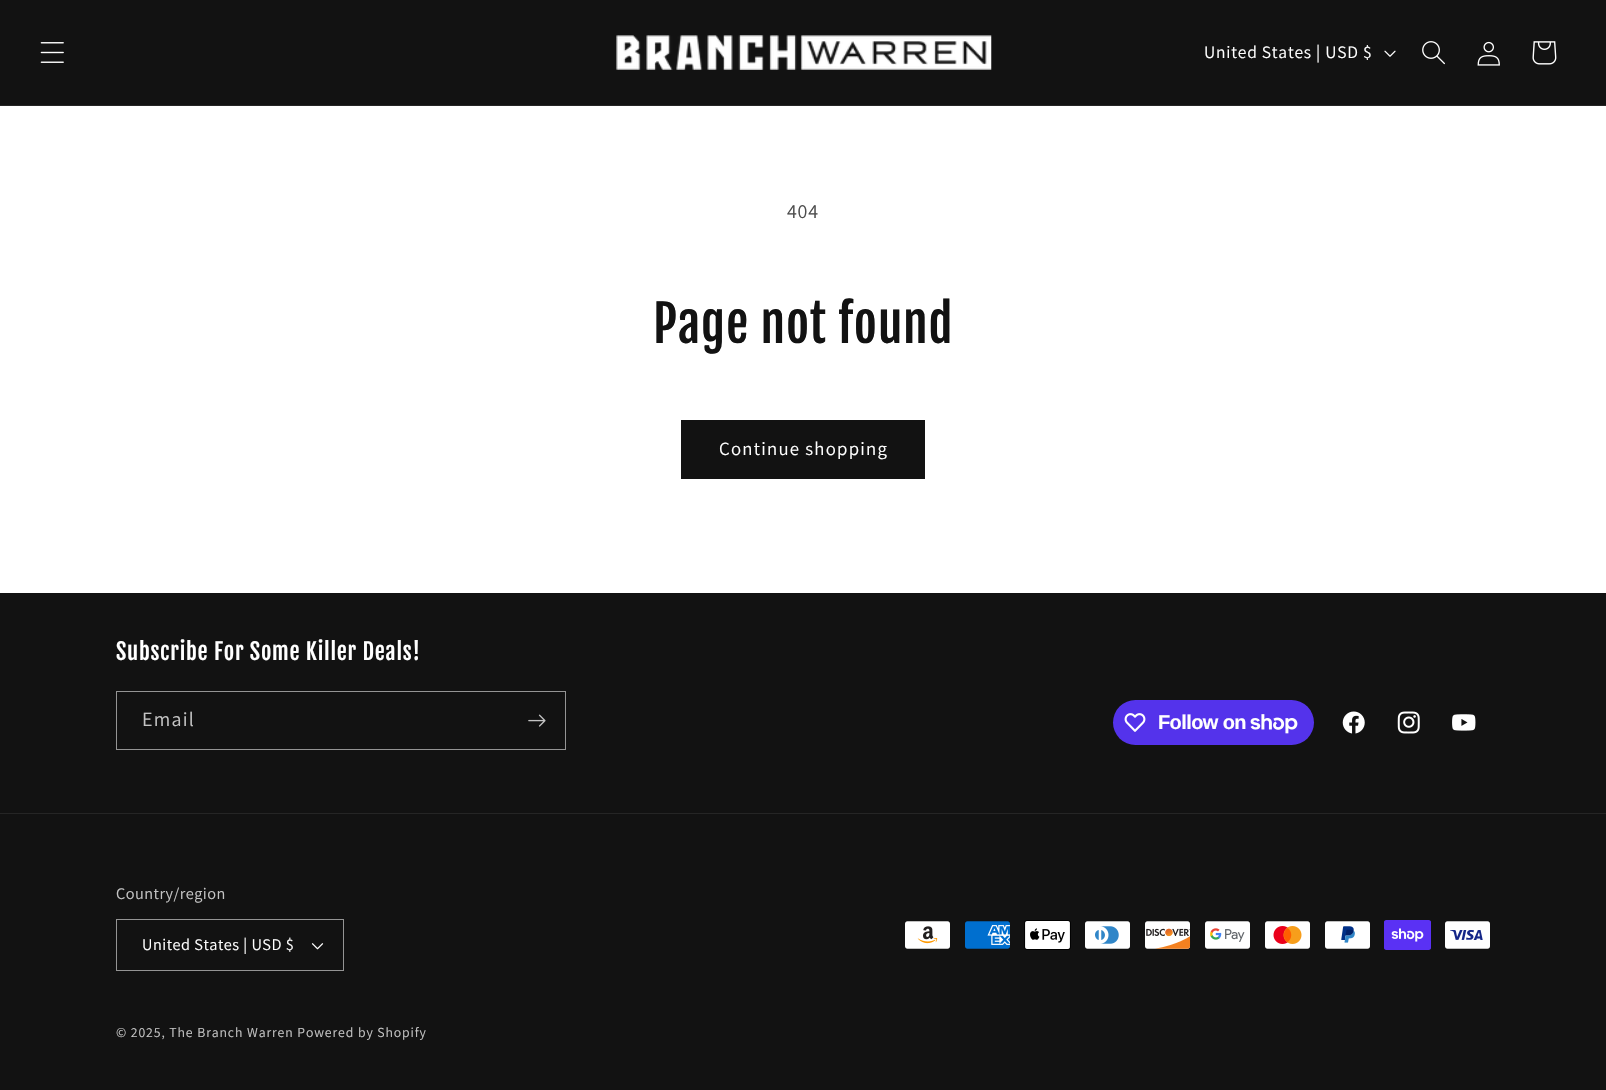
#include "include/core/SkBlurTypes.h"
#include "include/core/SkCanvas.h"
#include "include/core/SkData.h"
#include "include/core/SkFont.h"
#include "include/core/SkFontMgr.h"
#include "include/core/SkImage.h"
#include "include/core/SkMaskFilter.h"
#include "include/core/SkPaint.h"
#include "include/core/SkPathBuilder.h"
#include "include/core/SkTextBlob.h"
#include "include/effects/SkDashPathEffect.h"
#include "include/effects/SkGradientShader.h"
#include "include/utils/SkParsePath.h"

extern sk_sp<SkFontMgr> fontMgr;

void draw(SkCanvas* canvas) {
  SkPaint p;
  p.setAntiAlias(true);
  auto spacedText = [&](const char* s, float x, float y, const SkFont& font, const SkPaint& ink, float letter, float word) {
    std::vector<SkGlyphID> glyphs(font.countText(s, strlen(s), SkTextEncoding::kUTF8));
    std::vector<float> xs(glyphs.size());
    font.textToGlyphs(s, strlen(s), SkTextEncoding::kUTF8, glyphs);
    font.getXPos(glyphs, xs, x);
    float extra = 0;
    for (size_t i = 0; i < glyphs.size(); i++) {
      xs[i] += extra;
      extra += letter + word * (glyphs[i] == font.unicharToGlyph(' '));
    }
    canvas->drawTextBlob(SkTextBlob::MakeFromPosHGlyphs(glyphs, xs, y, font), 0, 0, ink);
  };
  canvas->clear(SK_ColorWHITE);
  p.setColor(SkColorSetRGB(18, 18, 18));
  canvas->drawRect(SkRect::MakeLTRB(0, 0, 1606, 105), p);
  p.setColor(SkColorSetRGB(37, 37, 37));
  canvas->drawRect(SkRect::MakeLTRB(0, 105, 1606, 106), p);
  canvas->drawImageRect(SkImages::DeferredFromEncodedData(SkData::MakeFromFileName("images/1.png")), SkRect::MakeLTRB(40, 42, 64, 63), SkSamplingOptions());
  canvas->drawImageRect(SkImages::DeferredFromEncodedData(SkData::MakeFromFileName("images/2.png")), SkRect::MakeLTRB(616, 35, 992, 70), SkSamplingOptions());
  canvas->drawImageRect(SkImages::DeferredFromEncodedData(SkData::MakeFromFileName("images/3.png")), SkRect::MakeLTRB(1384, 50, 1396, 57), SkSamplingOptions());
  canvas->drawImageRect(SkImages::DeferredFromEncodedData(SkData::MakeFromFileName("images/4.png")), SkRect::MakeLTRB(1422, 41, 1445, 65), SkSamplingOptions());
  canvas->drawImageRect(SkImages::DeferredFromEncodedData(SkData::MakeFromFileName("images/5.png")), SkRect::MakeLTRB(1477, 41, 1500, 66), SkSamplingOptions());
  canvas->drawImageRect(SkImages::DeferredFromEncodedData(SkData::MakeFromFileName("images/6.png")), SkRect::MakeLTRB(1532, 41, 1557, 65), SkSamplingOptions());
  p.setColor(SkColorSetRGB(18, 18, 18));
  canvas->drawRect(SkRect::MakeLTRB(681, 420, 925, 479), p);
  canvas->drawRect(SkRect::MakeLTRB(0, 593, 1606, 1090), p);
  p.setStyle(SkPaint::kStroke_Style);
  p.setStrokeWidth(1);
  p.setColor(SkColorSetRGB(148, 148, 148));
  canvas->drawRect(SkRect::MakeLTRB(116.5f, 691.5f, 565.5f, 749.5f), p);
  canvas->drawImageRect(SkImages::DeferredFromEncodedData(SkData::MakeFromFileName("images/7.png")), SkRect::MakeLTRB(528, 714, 546, 727), SkSamplingOptions());
  p.setStyle(SkPaint::kFill_Style);
  p.setColor(SkColorSetRGB(84, 51, 235));
  canvas->drawRoundRect(SkRect::MakeLTRB(1113, 700, 1314, 745), 22.5f, 22.5f, p);
  canvas->drawImageRect(SkImages::DeferredFromEncodedData(SkData::MakeFromFileName("images/8.png")), SkRect::MakeLTRB(1124, 713, 1146, 732), SkSamplingOptions());
  canvas->drawImageRect(SkImages::DeferredFromEncodedData(SkData::MakeFromFileName("images/9.png")), SkRect::MakeLTRB(1250, 714, 1298, 734), SkSamplingOptions());
  canvas->drawImageRect(SkImages::DeferredFromEncodedData(SkData::MakeFromFileName("images/10.png")), SkRect::MakeLTRB(1342, 711, 1365, 734), SkSamplingOptions());
  canvas->drawImageRect(SkImages::DeferredFromEncodedData(SkData::MakeFromFileName("images/11.png")), SkRect::MakeLTRB(1397, 711, 1420, 734), SkSamplingOptions());
  canvas->drawImageRect(SkImages::DeferredFromEncodedData(SkData::MakeFromFileName("images/12.png")), SkRect::MakeLTRB(1452, 714, 1476, 731), SkSamplingOptions());
  p.setColor(SkColorSetRGB(37, 37, 37));
  canvas->drawRect(SkRect::MakeLTRB(0, 813, 1606, 814), p);
  canvas->drawImageRect(SkImages::DeferredFromEncodedData(SkData::MakeFromFileName("images/13.png")), SkRect::MakeLTRB(311, 943, 324, 950), SkSamplingOptions());
  p.setStyle(SkPaint::kStroke_Style);
  p.setColor(SkColorSetRGB(148, 148, 148));
  canvas->drawRect(SkRect::MakeLTRB(116.5f, 919.5f, 343.5f, 970.5f), p);
  canvas->drawImageRect(SkImages::DeferredFromEncodedData(SkData::MakeFromFileName("images/14.png")), SkRect::MakeLTRB(905, 921, 950, 949), SkSamplingOptions());
  canvas->drawImageRect(SkImages::DeferredFromEncodedData(SkData::MakeFromFileName("images/15.png")), SkRect::MakeLTRB(965, 921, 1010, 949), SkSamplingOptions());
  canvas->drawImageRect(SkImages::DeferredFromEncodedData(SkData::MakeFromFileName("images/16.png")), SkRect::MakeLTRB(1024, 920, 1071, 950), SkSamplingOptions());
  canvas->drawImageRect(SkImages::DeferredFromEncodedData(SkData::MakeFromFileName("images/17.png")), SkRect::MakeLTRB(1085, 921, 1130, 949), SkSamplingOptions());
  canvas->drawImageRect(SkImages::DeferredFromEncodedData(SkData::MakeFromFileName("images/18.png")), SkRect::MakeLTRB(1145, 921, 1191, 949), SkSamplingOptions());
  canvas->drawImageRect(SkImages::DeferredFromEncodedData(SkData::MakeFromFileName("images/19.png")), SkRect::MakeLTRB(1205, 921, 1250, 949), SkSamplingOptions());
  canvas->drawImageRect(SkImages::DeferredFromEncodedData(SkData::MakeFromFileName("images/20.png")), SkRect::MakeLTRB(1265, 921, 1310, 949), SkSamplingOptions());
  canvas->drawImageRect(SkImages::DeferredFromEncodedData(SkData::MakeFromFileName("images/21.png")), SkRect::MakeLTRB(1325, 921, 1370, 949), SkSamplingOptions());
  canvas->drawImageRect(SkImages::DeferredFromEncodedData(SkData::MakeFromFileName("images/22.png")), SkRect::MakeLTRB(1384, 920, 1431, 950), SkSamplingOptions());
  canvas->drawImageRect(SkImages::DeferredFromEncodedData(SkData::MakeFromFileName("images/23.png")), SkRect::MakeLTRB(1445, 921, 1490, 949), SkSamplingOptions());
  SkFont font1(fontMgr->matchFamilyStyle("Assistant", SkFontStyle::Normal()), 17.5f);
  font1.setSubpixel(true);
  p.setStyle(SkPaint::kFill_Style);
  p.setColor(SK_ColorWHITE);
  spacedText("United States | USD $", 1204, 58, font1, p, 0.75f, 0);
  SkFont font2(fontMgr->matchFamilyStyle("Assistant", SkFontStyle::Normal()), 20);
  font2.setSubpixel(true);
  p.setColor(SkColorSetRGB(77, 77, 77));
  spacedText("404", 787, 218, font2, p, 0.75f, 0);
  SkFont font3(fontMgr->matchFamilyStyle("Fjalla One", SkFontStyle::Normal()), 50);
  font3.setSubpixel(true);
  p.setColor(SkColorSetRGB(18, 18, 18));
  spacedText("Page not found", 653, 343, font3, p, 0.75f, 0);
  SkFont font4(fontMgr->matchFamilyStyle("Assistant", SkFontStyle::Normal()), 18.75f);
  font4.setSubpixel(true);
  p.setColor(SK_ColorWHITE);
  spacedText("Continue shopping", 719, 455, font4, p, 1.25f, 0);
  SkFont font5(fontMgr->matchFamilyStyle("Fjalla One", SkFontStyle::Normal()), 22.5f);
  font5.setSubpixel(true);
  spacedText("Subscribe For Some Killer Deals!", 116, 660, font5, p, 0.75f, 0);
  p.setColor(SkColorSetRGB(196, 196, 196));
  spacedText("Email", 142, 726, font2, p, 1.25f, 0);
  SkFont font6(fontMgr->matchFamilyStyle("Liberation Sans", SkFontStyle::Bold()), 20);
  font6.setSubpixel(true);
  p.setColor(SK_ColorWHITE);
  spacedText("Follow on", 1158, 729, font6, p, -0.6f, 0);
  SkFont font7(fontMgr->matchFamilyStyle("Assistant", SkFontStyle::Normal()), 16.25f);
  font7.setSubpixel(true);
  p.setColor(SkColorSetRGB(196, 196, 196));
  spacedText("Country/region", 116, 899, font7, p, 0.5f, 0);
  p.setColor(SK_ColorWHITE);
  spacedText("United States | USD $", 142, 950, font7, p, 0.5f, 0);
  SkFont font8(fontMgr->matchFamilyStyle("Assistant", SkFontStyle::Normal()), 13.75f);
  font8.setSubpixel(true);
  p.setColor(SkColorSetRGB(196, 196, 196));
  spacedText("© 2025, The Branch Warren Powered by Shopify", 116, 1037, font8, p, 0.9f, 0);
}
